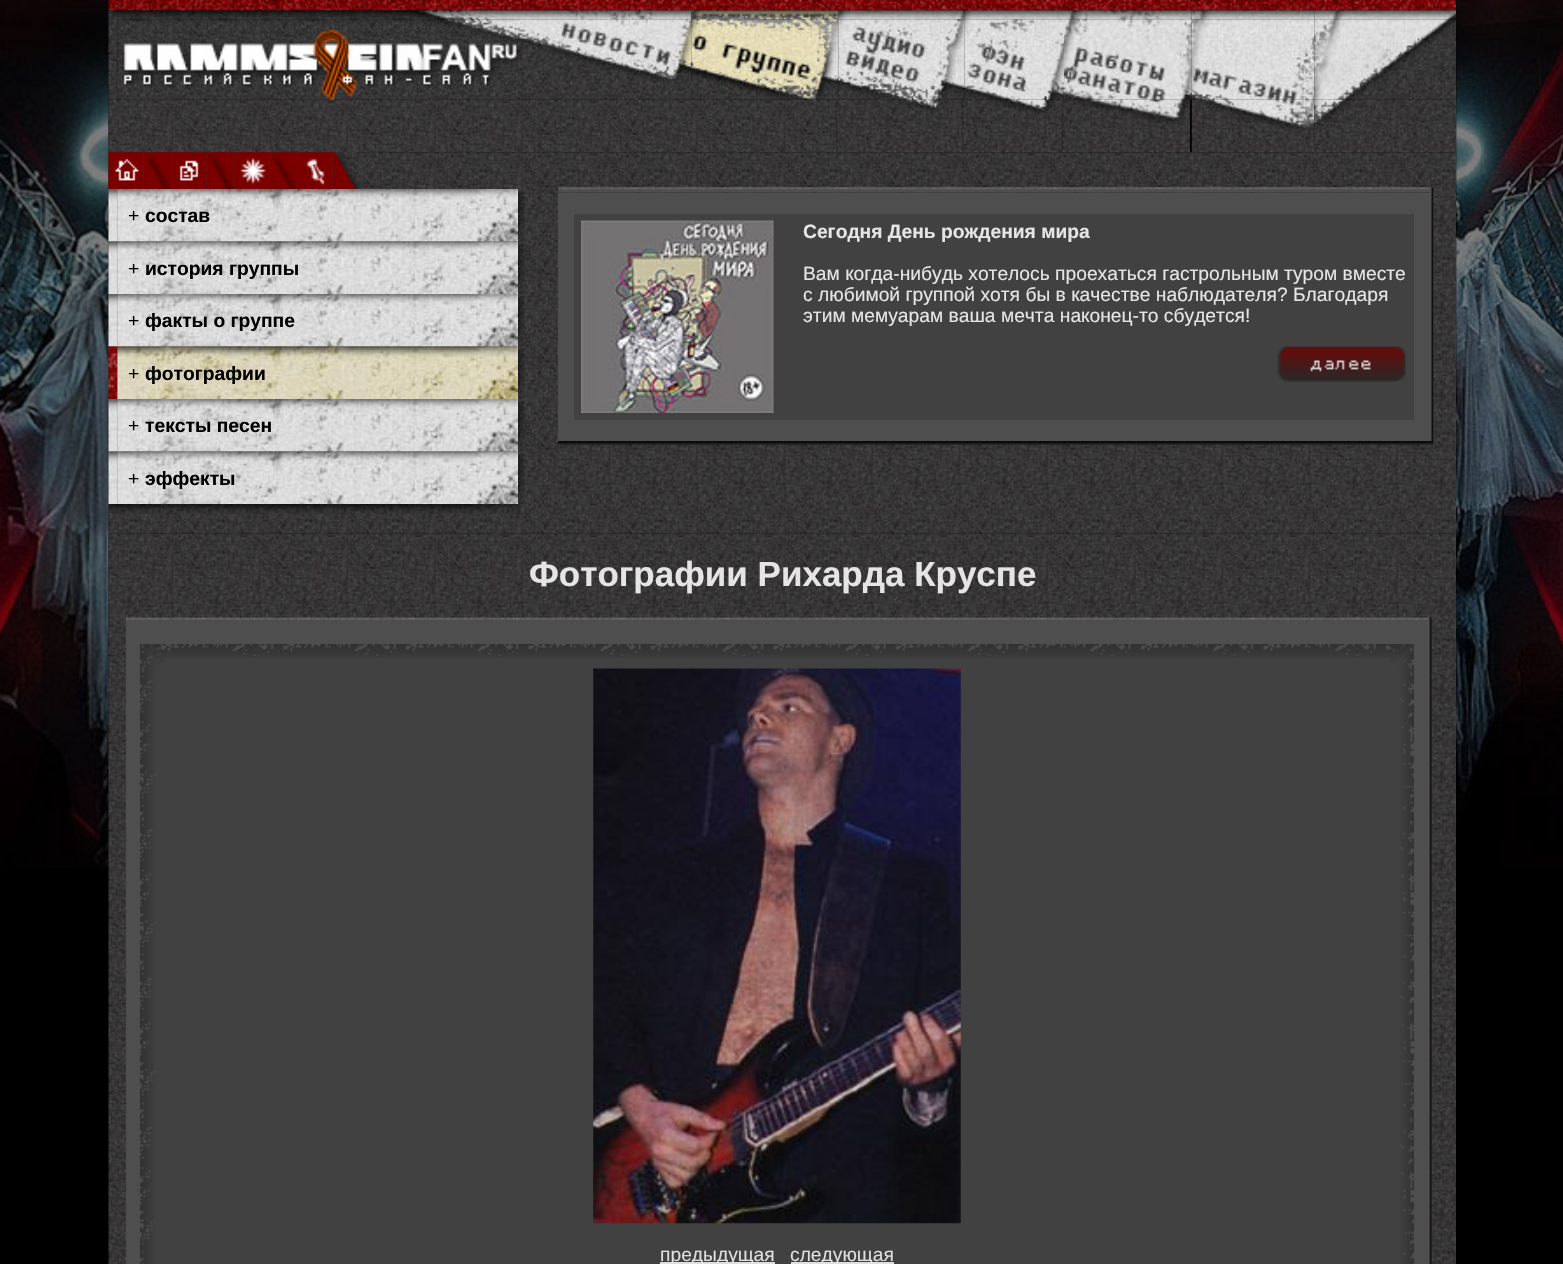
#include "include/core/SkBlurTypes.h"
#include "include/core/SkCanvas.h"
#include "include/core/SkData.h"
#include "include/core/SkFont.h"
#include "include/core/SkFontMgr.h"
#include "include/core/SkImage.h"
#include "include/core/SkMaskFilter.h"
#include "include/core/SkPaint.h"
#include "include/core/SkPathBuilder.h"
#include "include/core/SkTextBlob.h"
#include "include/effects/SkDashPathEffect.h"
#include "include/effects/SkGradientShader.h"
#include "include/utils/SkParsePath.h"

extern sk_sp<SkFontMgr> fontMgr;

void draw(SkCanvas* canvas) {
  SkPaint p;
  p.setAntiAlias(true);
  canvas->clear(SK_ColorBLACK);
  canvas->drawImageRect(SkImages::DeferredFromEncodedData(SkData::MakeFromFileName("images/1.png")), SkRect::MakeLTRB(0, 0, 1563, 868), SkSamplingOptions());
  canvas->drawImageRect(SkImages::DeferredFromEncodedData(SkData::MakeFromFileName("images/2.png")), SkRect::MakeLTRB(108, 0, 1456, 11), SkSamplingOptions());
  canvas->drawImageRect(SkImages::DeferredFromEncodedData(SkData::MakeFromFileName("images/11.png")), SkRect::MakeLTRB(108, 19, 118, 100), SkSamplingOptions());
  canvas->drawImageRect(SkImages::DeferredFromEncodedData(SkData::MakeFromFileName("images/3.png")), SkRect::MakeLTRB(108, 10, 518, 20), SkSamplingOptions());
  canvas->drawImageRect(SkImages::DeferredFromEncodedData(SkData::MakeFromFileName("images/4.png")), SkRect::MakeLTRB(518, 10, 692, 20), SkSamplingOptions());
  canvas->drawImageRect(SkImages::DeferredFromEncodedData(SkData::MakeFromFileName("images/5.png")), SkRect::MakeLTRB(691, 10, 839, 20), SkSamplingOptions());
  canvas->drawImageRect(SkImages::DeferredFromEncodedData(SkData::MakeFromFileName("images/6.png")), SkRect::MakeLTRB(838, 10, 965, 20), SkSamplingOptions());
  canvas->drawImageRect(SkImages::DeferredFromEncodedData(SkData::MakeFromFileName("images/7.png")), SkRect::MakeLTRB(964, 10, 1064, 20), SkSamplingOptions());
  canvas->drawImageRect(SkImages::DeferredFromEncodedData(SkData::MakeFromFileName("images/8.png")), SkRect::MakeLTRB(1064, 10, 1192, 20), SkSamplingOptions());
  canvas->drawImageRect(SkImages::DeferredFromEncodedData(SkData::MakeFromFileName("images/9.png")), SkRect::MakeLTRB(1191, 10, 1315, 20), SkSamplingOptions());
  canvas->drawImageRect(SkImages::DeferredFromEncodedData(SkData::MakeFromFileName("images/10.png")), SkRect::MakeLTRB(1314, 10, 1456, 20), SkSamplingOptions());
  canvas->drawImageRect(SkImages::DeferredFromEncodedData(SkData::MakeFromFileName("images/20.png")), SkRect::MakeLTRB(108, 99, 837, 153), SkSamplingOptions());
  canvas->drawImageRect(SkImages::DeferredFromEncodedData(SkData::MakeFromFileName("images/12.png")), SkRect::MakeLTRB(117, 19, 518, 100), SkSamplingOptions());
  canvas->drawImageRect(SkImages::DeferredFromEncodedData(SkData::MakeFromFileName("images/13.png")), SkRect::MakeLTRB(518, 19, 692, 100), SkSamplingOptions());
  canvas->drawImageRect(SkImages::DeferredFromEncodedData(SkData::MakeFromFileName("images/14.png")), SkRect::MakeLTRB(691, 19, 839, 100), SkSamplingOptions());
  canvas->drawImageRect(SkImages::DeferredFromEncodedData(SkData::MakeFromFileName("images/15.png")), SkRect::MakeLTRB(838, 19, 965, 100), SkSamplingOptions());
  canvas->drawImageRect(SkImages::DeferredFromEncodedData(SkData::MakeFromFileName("images/16.png")), SkRect::MakeLTRB(964, 19, 1064, 100), SkSamplingOptions());
  canvas->drawImageRect(SkImages::DeferredFromEncodedData(SkData::MakeFromFileName("images/17.png")), SkRect::MakeLTRB(1064, 19, 1192, 100), SkSamplingOptions());
  canvas->drawImageRect(SkImages::DeferredFromEncodedData(SkData::MakeFromFileName("images/18.png")), SkRect::MakeLTRB(1191, 19, 1315, 100), SkSamplingOptions());
  canvas->drawImageRect(SkImages::DeferredFromEncodedData(SkData::MakeFromFileName("images/19.png")), SkRect::MakeLTRB(1314, 19, 1456, 100), SkSamplingOptions());
  canvas->drawImageRect(SkImages::DeferredFromEncodedData(SkData::MakeFromFileName("images/26.png")), SkRect::MakeLTRB(108, 152, 1456, 534), SkSamplingOptions());
  canvas->drawImageRect(SkImages::DeferredFromEncodedData(SkData::MakeFromFileName("images/21.png")), SkRect::MakeLTRB(836, 99, 963, 153), SkSamplingOptions());
  canvas->drawImageRect(SkImages::DeferredFromEncodedData(SkData::MakeFromFileName("images/22.png")), SkRect::MakeLTRB(962, 99, 1063, 153), SkSamplingOptions());
  canvas->drawImageRect(SkImages::DeferredFromEncodedData(SkData::MakeFromFileName("images/23.png")), SkRect::MakeLTRB(1062, 99, 1190, 153), SkSamplingOptions());
  canvas->drawImageRect(SkImages::DeferredFromEncodedData(SkData::MakeFromFileName("images/24.png")), SkRect::MakeLTRB(1191, 99, 1315, 153), SkSamplingOptions());
  canvas->drawImageRect(SkImages::DeferredFromEncodedData(SkData::MakeFromFileName("images/25.png")), SkRect::MakeLTRB(1314, 99, 1456, 153), SkSamplingOptions());
  canvas->drawImageRect(SkImages::DeferredFromEncodedData(SkData::MakeFromFileName("images/27.png")), SkRect::MakeLTRB(108, 152, 144, 189), SkSamplingOptions());
  canvas->drawImageRect(SkImages::DeferredFromEncodedData(SkData::MakeFromFileName("images/28.png")), SkRect::MakeLTRB(143, 152, 172, 189), SkSamplingOptions());
  canvas->drawImageRect(SkImages::DeferredFromEncodedData(SkData::MakeFromFileName("images/29.png")), SkRect::MakeLTRB(171, 152, 207, 189), SkSamplingOptions());
  canvas->drawImageRect(SkImages::DeferredFromEncodedData(SkData::MakeFromFileName("images/30.png")), SkRect::MakeLTRB(206, 152, 235, 189), SkSamplingOptions());
  canvas->drawImageRect(SkImages::DeferredFromEncodedData(SkData::MakeFromFileName("images/31.png")), SkRect::MakeLTRB(234, 152, 270, 189), SkSamplingOptions());
  canvas->drawImageRect(SkImages::DeferredFromEncodedData(SkData::MakeFromFileName("images/32.png")), SkRect::MakeLTRB(269, 152, 298, 189), SkSamplingOptions());
  canvas->drawImageRect(SkImages::DeferredFromEncodedData(SkData::MakeFromFileName("images/33.png")), SkRect::MakeLTRB(297, 152, 333, 189), SkSamplingOptions());
  canvas->drawImageRect(SkImages::DeferredFromEncodedData(SkData::MakeFromFileName("images/34.png")), SkRect::MakeLTRB(332, 152, 361, 189), SkSamplingOptions());
  canvas->drawImageRect(SkImages::DeferredFromEncodedData(SkData::MakeFromFileName("images/36.png")), SkRect::MakeLTRB(117, 189, 518, 242), SkSamplingOptions());
  canvas->drawImageRect(SkImages::DeferredFromEncodedData(SkData::MakeFromFileName("images/39.png")), SkRect::MakeLTRB(117, 241, 518, 294), SkSamplingOptions());
  canvas->drawImageRect(SkImages::DeferredFromEncodedData(SkData::MakeFromFileName("images/35.png")), SkRect::MakeLTRB(108, 189, 118, 242), SkSamplingOptions());
  canvas->drawImageRect(SkImages::DeferredFromEncodedData(SkData::MakeFromFileName("images/37.png")), SkRect::MakeLTRB(518, 189, 525, 242), SkSamplingOptions());
  canvas->drawImageRect(SkImages::DeferredFromEncodedData(SkData::MakeFromFileName("images/38.png")), SkRect::MakeLTRB(108, 241, 118, 294), SkSamplingOptions());
  canvas->drawImageRect(SkImages::DeferredFromEncodedData(SkData::MakeFromFileName("images/40.png")), SkRect::MakeLTRB(518, 241, 525, 294), SkSamplingOptions());
  canvas->drawImageRect(SkImages::DeferredFromEncodedData(SkData::MakeFromFileName("images/42.png")), SkRect::MakeLTRB(117, 294, 518, 347), SkSamplingOptions());
  canvas->drawImageRect(SkImages::DeferredFromEncodedData(SkData::MakeFromFileName("images/45.png")), SkRect::MakeLTRB(117, 346, 518, 399), SkSamplingOptions());
  canvas->drawImageRect(SkImages::DeferredFromEncodedData(SkData::MakeFromFileName("images/41.png")), SkRect::MakeLTRB(108, 294, 118, 347), SkSamplingOptions());
  canvas->drawImageRect(SkImages::DeferredFromEncodedData(SkData::MakeFromFileName("images/43.png")), SkRect::MakeLTRB(518, 294, 525, 347), SkSamplingOptions());
  canvas->drawImageRect(SkImages::DeferredFromEncodedData(SkData::MakeFromFileName("images/44.png")), SkRect::MakeLTRB(108, 346, 118, 399), SkSamplingOptions());
  canvas->drawImageRect(SkImages::DeferredFromEncodedData(SkData::MakeFromFileName("images/46.png")), SkRect::MakeLTRB(518, 346, 525, 399), SkSamplingOptions());
  canvas->drawImageRect(SkImages::DeferredFromEncodedData(SkData::MakeFromFileName("images/42.png")), SkRect::MakeLTRB(117, 399, 518, 452), SkSamplingOptions());
  canvas->drawImageRect(SkImages::DeferredFromEncodedData(SkData::MakeFromFileName("images/39.png")), SkRect::MakeLTRB(117, 451, 518, 504), SkSamplingOptions());
  canvas->drawImageRect(SkImages::DeferredFromEncodedData(SkData::MakeFromFileName("images/47.png")), SkRect::MakeLTRB(108, 399, 118, 452), SkSamplingOptions());
  canvas->drawImageRect(SkImages::DeferredFromEncodedData(SkData::MakeFromFileName("images/48.png")), SkRect::MakeLTRB(518, 399, 525, 452), SkSamplingOptions());
  canvas->drawImageRect(SkImages::DeferredFromEncodedData(SkData::MakeFromFileName("images/49.png")), SkRect::MakeLTRB(108, 451, 118, 504), SkSamplingOptions());
  canvas->drawImageRect(SkImages::DeferredFromEncodedData(SkData::MakeFromFileName("images/50.png")), SkRect::MakeLTRB(518, 451, 525, 504), SkSamplingOptions());
  canvas->drawImageRect(SkImages::DeferredFromEncodedData(SkData::MakeFromFileName("images/51.png")), SkRect::MakeLTRB(108, 504, 525, 513), SkSamplingOptions());
  canvas->drawImageRect(SkImages::DeferredFromEncodedData(SkData::MakeFromFileName("images/52.png")), SkRect::MakeLTRB(558, 187, 1430, 193), SkSamplingOptions());
  canvas->drawImageRect(SkImages::DeferredFromEncodedData(SkData::MakeFromFileName("images/53.png")), SkRect::MakeLTRB(1429, 187, 1434, 441), SkSamplingOptions());
  p.setColor(SkColorSetRGB(78, 78, 78));
  canvas->drawRect(SkRect::MakeLTRB(558, 193, 1430, 441), p);
  p.setColor(SkColorSetRGB(65, 65, 65));
  canvas->drawRect(SkRect::MakeLTRB(574, 214, 1414, 420), p);
  canvas->drawImageRect(SkImages::DeferredFromEncodedData(SkData::MakeFromFileName("images/54.png")), SkRect::MakeLTRB(581, 220, 774, 413), SkSamplingOptions());
  canvas->drawImageRect(SkImages::DeferredFromEncodedData(SkData::MakeFromFileName("images/55.png")), SkRect::MakeLTRB(1277, 346, 1406, 382), SkSamplingOptions());
  canvas->drawImageRect(SkImages::DeferredFromEncodedData(SkData::MakeFromFileName("images/56.png")), SkRect::MakeLTRB(558, 441, 1434, 445), SkSamplingOptions());
  canvas->drawImageRect(SkImages::DeferredFromEncodedData(SkData::MakeFromFileName("images/57.png")), SkRect::MakeLTRB(108, 533, 1456, 1264), SkSamplingOptions());
  canvas->drawImageRect(SkImages::DeferredFromEncodedData(SkData::MakeFromFileName("images/58.png")), SkRect::MakeLTRB(126, 617, 1428, 623), SkSamplingOptions());
  canvas->drawImageRect(SkImages::DeferredFromEncodedData(SkData::MakeFromFileName("images/59.png")), SkRect::MakeLTRB(1428, 617, 1432, 1264), SkSamplingOptions());
  p.setColor(SkColorSetRGB(78, 78, 78));
  canvas->drawRect(SkRect::MakeLTRB(126, 623, 1428, 1264), p);
  p.setColor(SkColorSetRGB(65, 65, 65));
  canvas->drawRect(SkRect::MakeLTRB(140, 644, 1414, 669), p);
  canvas->drawImageRect(SkImages::DeferredFromEncodedData(SkData::MakeFromFileName("images/61.png")), SkRect::MakeLTRB(164, 644, 1390, 658), SkSamplingOptions());
  canvas->drawImageRect(SkImages::DeferredFromEncodedData(SkData::MakeFromFileName("images/63.png")), SkRect::MakeLTRB(140, 668, 156, 1264), SkSamplingOptions());
  canvas->drawImageRect(SkImages::DeferredFromEncodedData(SkData::MakeFromFileName("images/60.png")), SkRect::MakeLTRB(140, 644, 165, 669), SkSamplingOptions());
  canvas->drawImageRect(SkImages::DeferredFromEncodedData(SkData::MakeFromFileName("images/65.png")), SkRect::MakeLTRB(1400, 668, 1414, 1264), SkSamplingOptions());
  canvas->drawImageRect(SkImages::DeferredFromEncodedData(SkData::MakeFromFileName("images/62.png")), SkRect::MakeLTRB(1389, 644, 1414, 669), SkSamplingOptions());
  canvas->drawRect(SkRect::MakeLTRB(156, 669, 1400, 1264), p);
  canvas->drawImageRect(SkImages::DeferredFromEncodedData(SkData::MakeFromFileName("images/64.png")), SkRect::MakeLTRB(593, 668, 961, 1224), SkSamplingOptions());
  p.setColor(SkColorSetRGB(223, 223, 223));
  canvas->drawRect(SkRect::MakeLTRB(660, 1262, 775, 1264), p);
  canvas->drawRect(SkRect::MakeLTRB(791, 1262, 894, 1264), p);
  SkFont font1(fontMgr->matchFamilyStyle("Liberation Sans", SkFontStyle::Normal()), 19.25f);
  font1.setSubpixel(true);
  p.setColor(SK_ColorBLACK);
  canvas->drawString("+", 128, 222, font1, p);
  SkFont font2(fontMgr->matchFamilyStyle("Liberation Sans", SkFontStyle::Bold()), 19.25f);
  font2.setSubpixel(true);
  canvas->drawString("состав", 145, 222, font2, p);
  canvas->drawString("+", 128, 275, font1, p);
  canvas->drawString("история группы", 145, 275, font2, p);
  canvas->drawString("+", 128, 327, font1, p);
  canvas->drawString("факты о группе", 145, 327, font2, p);
  canvas->drawString("+", 128, 380, font1, p);
  canvas->drawString("фотографии", 145, 380, font2, p);
  canvas->drawString("+", 128, 432, font1, p);
  canvas->drawString("тексты песен", 145, 432, font2, p);
  canvas->drawString("+", 128, 485, font1, p);
  canvas->drawString("эффекты", 145, 485, font2, p);
  p.setColor(SkColorSetRGB(229, 229, 229));
  canvas->drawString("Сегодня День рождения мира", 803, 238, font2, p);
  canvas->drawString("Вам когда-нибудь хотелось проехаться гастрольным туром вместе", 803, 280, font1, p);
  canvas->drawString("с любимой группой хотя бы в качестве наблюдателя? Благодаря", 803, 301, font1, p);
  canvas->drawString("этим мемуарам ваша мечта наконец-то сбудется!", 803, 322, font1, p);
  SkFont font3(fontMgr->matchFamilyStyle("Liberation Sans", SkFontStyle::Bold()), 35);
  font3.setSubpixel(true);
  canvas->drawString("Фотографии Рихарда Круспе", 529, 586, font3, p);
  p.setColor(SkColorSetRGB(223, 223, 223));
  canvas->drawString("предыдущая", 660, 1261, font1, p);
  canvas->drawString("следующая", 790, 1261, font1, p);
}
